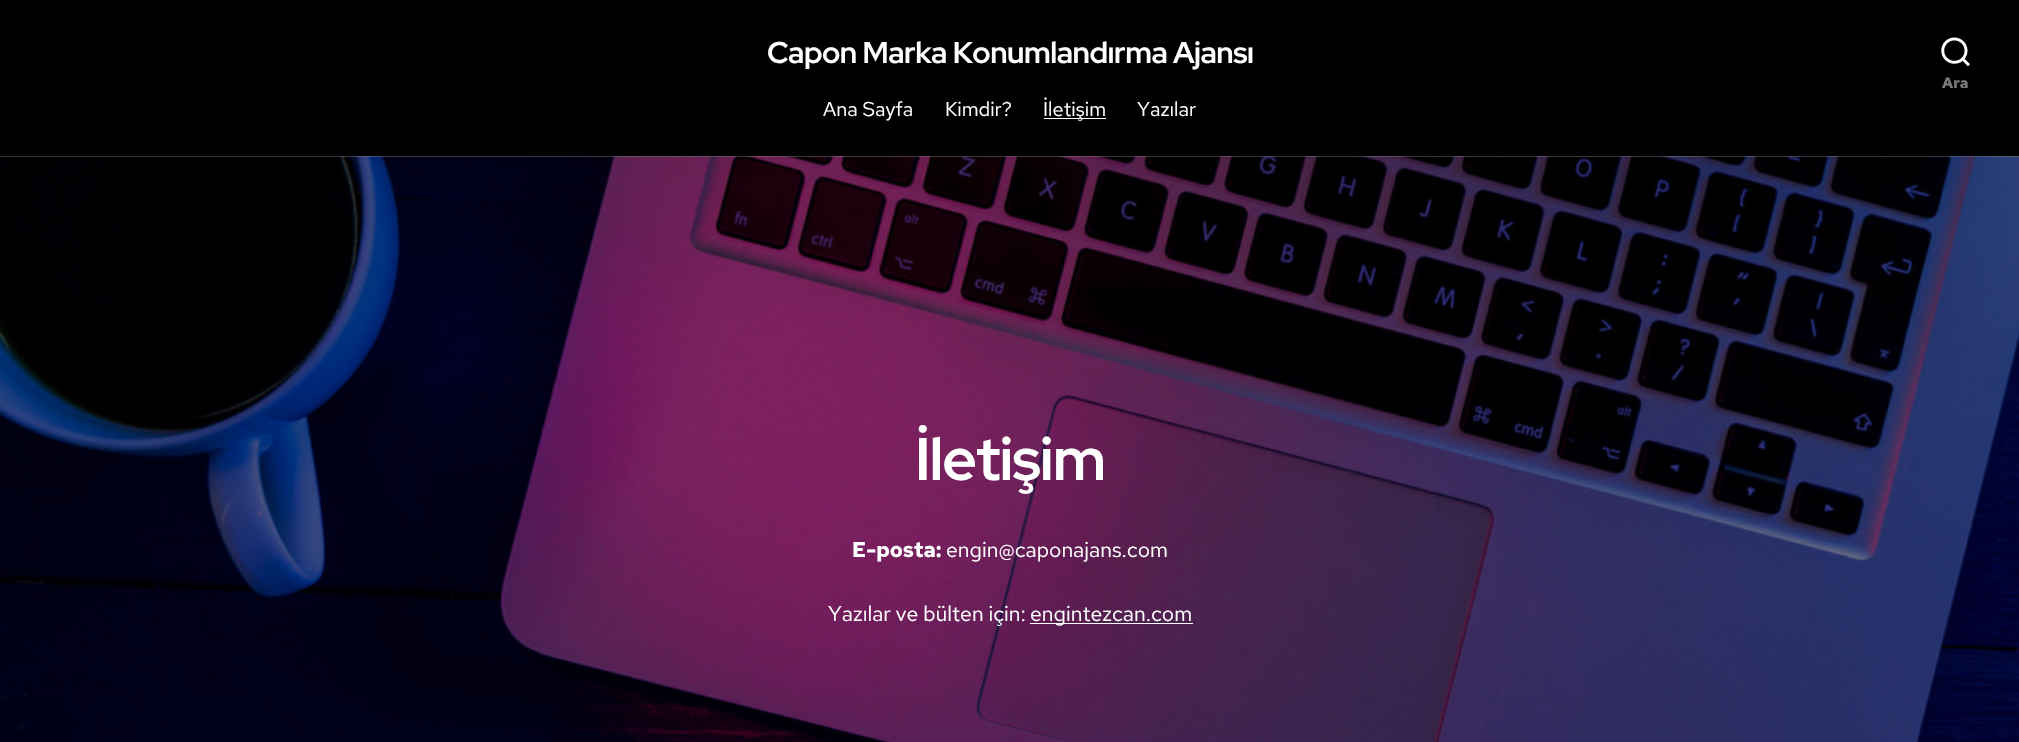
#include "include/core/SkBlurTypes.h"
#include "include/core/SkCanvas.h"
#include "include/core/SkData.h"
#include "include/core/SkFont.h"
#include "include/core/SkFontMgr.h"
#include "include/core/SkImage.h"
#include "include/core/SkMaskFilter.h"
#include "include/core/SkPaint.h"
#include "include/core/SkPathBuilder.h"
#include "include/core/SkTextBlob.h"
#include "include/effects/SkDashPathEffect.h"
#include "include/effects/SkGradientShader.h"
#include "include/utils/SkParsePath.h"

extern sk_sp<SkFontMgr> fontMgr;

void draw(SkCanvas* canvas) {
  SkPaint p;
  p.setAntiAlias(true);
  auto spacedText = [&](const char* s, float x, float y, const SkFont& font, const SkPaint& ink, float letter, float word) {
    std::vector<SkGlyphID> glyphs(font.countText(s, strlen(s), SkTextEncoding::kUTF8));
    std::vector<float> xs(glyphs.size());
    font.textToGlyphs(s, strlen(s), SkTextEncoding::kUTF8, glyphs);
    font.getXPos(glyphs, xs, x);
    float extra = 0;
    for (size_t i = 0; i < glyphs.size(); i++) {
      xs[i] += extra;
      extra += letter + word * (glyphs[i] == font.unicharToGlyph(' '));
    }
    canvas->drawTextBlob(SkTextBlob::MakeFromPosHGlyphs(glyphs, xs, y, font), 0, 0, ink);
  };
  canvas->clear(SkColorSetRGB(128, 128, 128));
  p.setColor(SK_ColorBLACK);
  canvas->drawRect(SkRect::MakeLTRB(0, 0, 2019, 156), p);
  canvas->drawImageRect(SkImages::DeferredFromEncodedData(SkData::MakeFromFileName("images/1.png")), SkRect::MakeLTRB(1941, 37, 1970, 67), SkSamplingOptions());
  p.setColor(SK_ColorWHITE);
  canvas->drawRect(SkRect::MakeLTRB(1044, 118, 1106, 119), p);
  canvas->drawImageRect(SkImages::DeferredFromEncodedData(SkData::MakeFromFileName("images/2.png")), SkRect::MakeLTRB(0, 156, 2019, 742), SkSamplingOptions());
  canvas->drawRect(SkRect::MakeLTRB(1030, 623, 1193, 624), p);
  SkFont font1(fontMgr->matchFamilyStyle("Red Hat Display", SkFontStyle::Bold()), 30);
  font1.setSubpixel(true);
  spacedText("Capon Marka Konumlandırma Ajansı", 767, 63, font1, p, -0.45f, 0);
  SkFont font2(fontMgr->matchFamilyStyle("Red Hat Text", SkFontStyle::Bold()), 15);
  font2.setSubpixel(true);
  p.setColor(SkColorSetRGB(124, 124, 124));
  canvas->drawString("Ara", 1942, 88, font2, p);
  SkFont font3(fontMgr->matchFamilyStyle("Red Hat Text", SkFontStyle::Normal()), 20);
  font3.setSubpixel(true);
  p.setColor(SK_ColorWHITE);
  canvas->drawString("Ana Sayfa", 823, 116, font3, p);
  canvas->drawString("Kimdir?", 945, 116, font3, p);
  canvas->drawString("İletişim", 1043, 116, font3, p);
  canvas->drawString("Yazılar", 1137, 116, font3, p);
  SkFont font4(fontMgr->matchFamilyStyle("Red Hat Display", SkFontStyle::Bold()), 60);
  font4.setSubpixel(true);
  spacedText("İletişim", 915, 480, font4, p, -1, 0);
  SkFont font5(fontMgr->matchFamilyStyle("Red Hat Text", SkFontStyle::Bold()), 21.25f);
  font5.setSubpixel(true);
  canvas->drawString("E-posta:", 852, 557, font5, p);
  SkFont font6(fontMgr->matchFamilyStyle("Red Hat Text", SkFontStyle::Normal()), 21.25f);
  font6.setSubpixel(true);
  canvas->drawString("engin@caponajans.com", 946, 557, font6, p);
  canvas->drawString("Yazılar ve bülten için:", 828, 621, font6, p);
  canvas->drawString("engintezcan.com", 1030, 621, font6, p);
}
